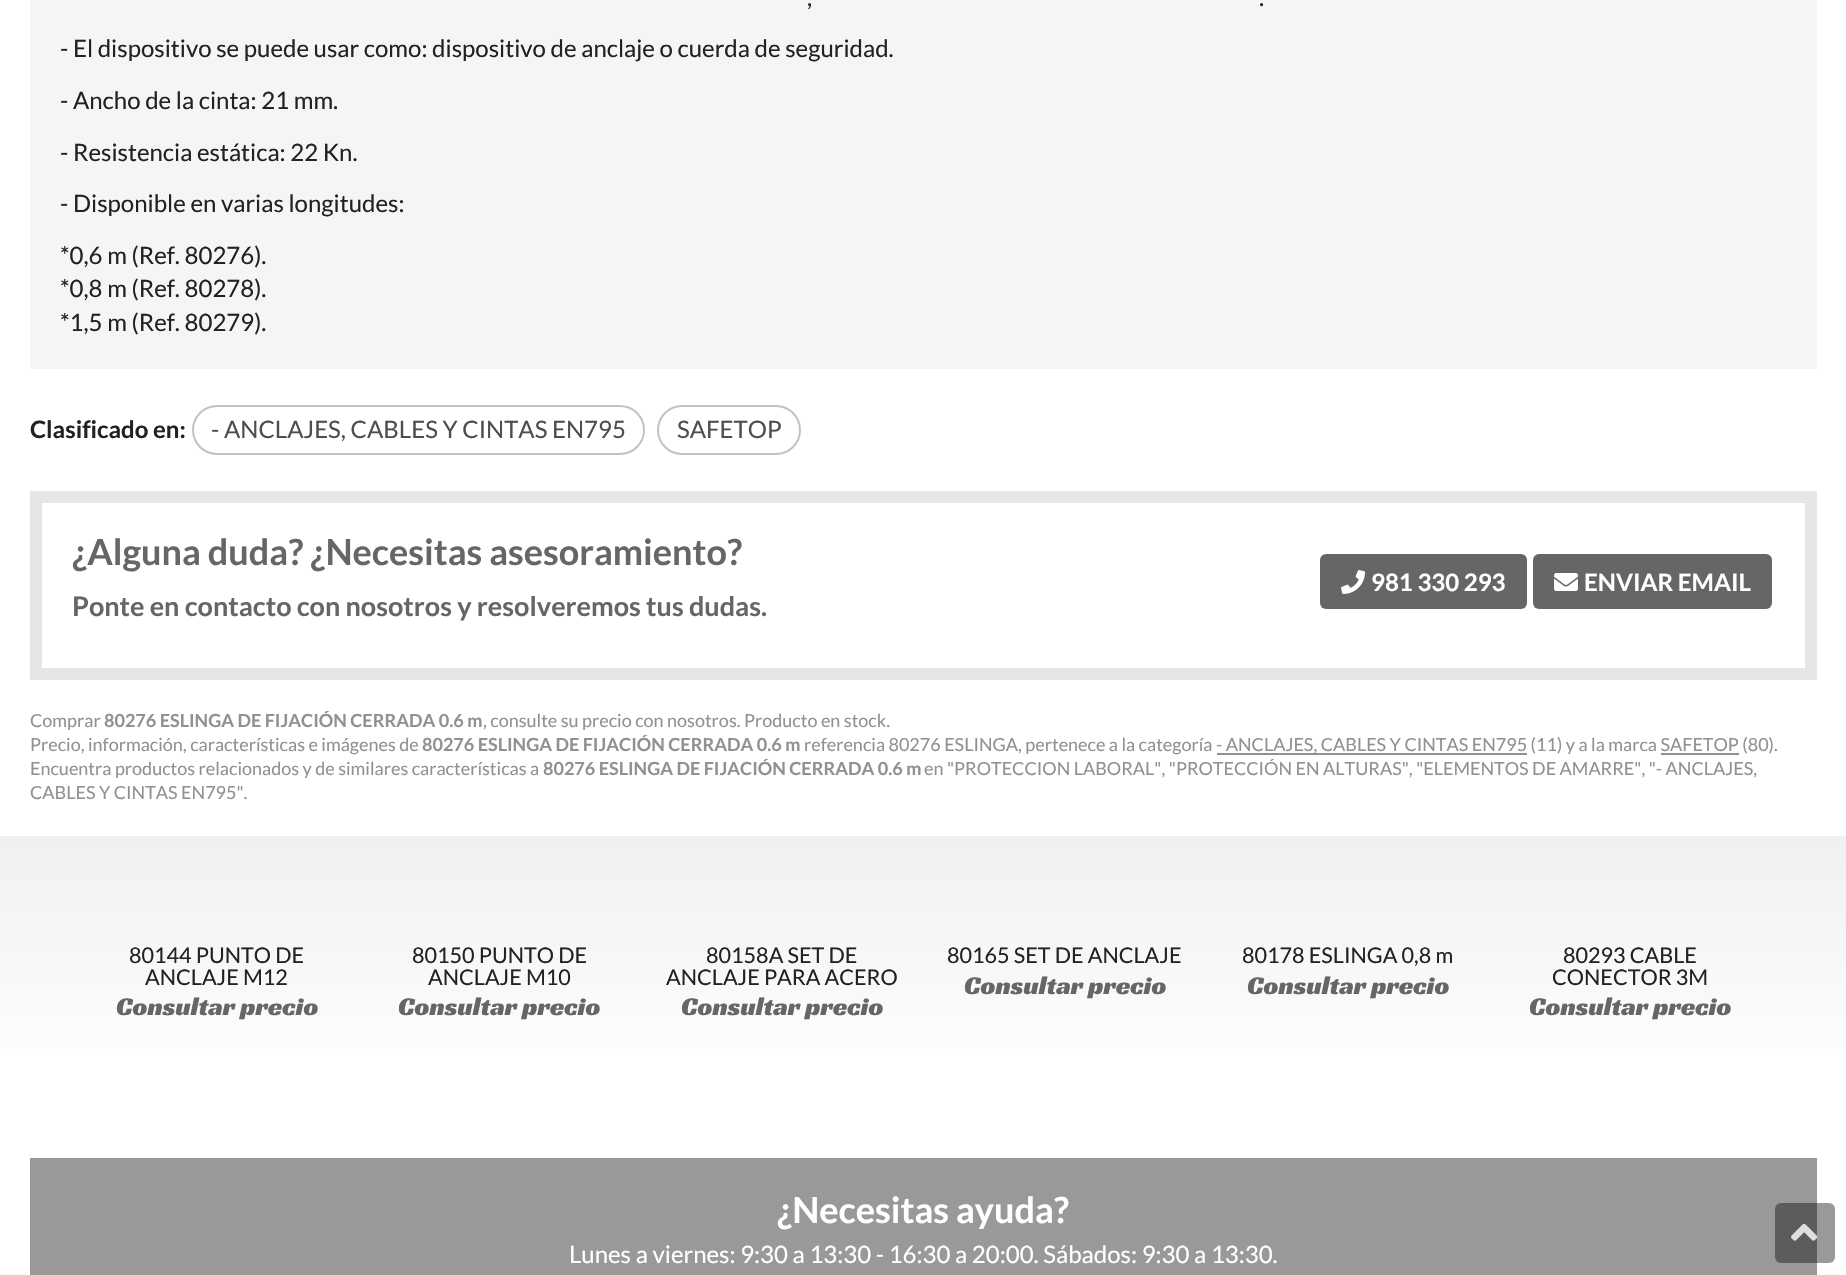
#include "include/core/SkBlurTypes.h"
#include "include/core/SkCanvas.h"
#include "include/core/SkData.h"
#include "include/core/SkFont.h"
#include "include/core/SkFontMgr.h"
#include "include/core/SkImage.h"
#include "include/core/SkMaskFilter.h"
#include "include/core/SkPaint.h"
#include "include/core/SkPathBuilder.h"
#include "include/core/SkTextBlob.h"
#include "include/effects/SkDashPathEffect.h"
#include "include/effects/SkGradientShader.h"
#include "include/utils/SkParsePath.h"

extern sk_sp<SkFontMgr> fontMgr;

void draw(SkCanvas* canvas) {
  SkPaint p;
  p.setAntiAlias(true);
  canvas->clear(SK_ColorWHITE);
  p.setColor(SkColorSetRGB(245, 245, 245));
  canvas->drawRect(SkRect::MakeLTRB(30, 0, 1817, 369), p);
  p.setStyle(SkPaint::kStroke_Style);
  p.setStrokeWidth(2);
  p.setColor(SkColorSetRGB(194, 194, 194));
  canvas->drawRoundRect(SkRect::MakeLTRB(193, 406, 644, 454), 24, 24, p);
  canvas->drawRoundRect(SkRect::MakeLTRB(658, 406, 800, 454), 24, 24, p);
  p.setStrokeWidth(12);
  p.setColor(SkColorSetRGB(230, 230, 230));
  canvas->drawRect(SkRect::MakeLTRB(36, 497, 1811, 674), p);
  p.setStyle(SkPaint::kFill_Style);
  p.setColor(SkColorSetRGB(102, 102, 102));
  canvas->drawRoundRect(SkRect::MakeLTRB(1320, 554, 1527, 609), 6, 6, p);
  canvas->drawImageRect(SkImages::DeferredFromEncodedData(SkData::MakeFromFileName("images/1.png")), SkRect::MakeLTRB(1341, 570, 1365, 594), SkSamplingOptions());
  canvas->drawRoundRect(SkRect::MakeLTRB(1533, 554, 1772, 609), 6, 6, p);
  canvas->drawImageRect(SkImages::DeferredFromEncodedData(SkData::MakeFromFileName("images/2.png")), SkRect::MakeLTRB(1554, 573, 1578, 591), SkSamplingOptions());
  p.setColor(SkColorSetRGB(145, 145, 145));
  canvas->drawRect(SkRect::MakeLTRB(1217, 753, 1527, 755), p);
  canvas->drawRect(SkRect::MakeLTRB(1661, 753, 1739, 755), p);
  {
    const SkColor colors[] = {SkColorSetRGB(240, 240, 240), SK_ColorWHITE};
    const float stops[] = {0, 1};
    const SkPoint ends[] = {{923, 835}, {923, 1092}};
    p.setShader(SkGradientShader::MakeLinear(ends, colors, stops, 2, SkTileMode::kClamp));
    p.setAlpha(255);
  }
  canvas->drawRect(SkRect::MakeLTRB(0, 836, 1846, 1049), p);
  p.setShader(nullptr);
  p.setColor(SkColorSetRGB(153, 153, 153));
  canvas->drawRect(SkRect::MakeLTRB(30, 1158, 1817, 1275), p);
  p.setColor(SkColorSetARGB(102, 0, 0, 0));
  canvas->drawRoundRect(SkRect::MakeLTRB(1775, 1203, 1835, 1263), 6, 6, p);
  canvas->drawImageRect(SkImages::DeferredFromEncodedData(SkData::MakeFromFileName("images/3.png")), SkRect::MakeLTRB(1791, 1223, 1818, 1241), SkSamplingOptions());
  SkFont font1(fontMgr->matchFamilyStyle("Lato", SkFontStyle::Normal()), 24);
  font1.setSubpixel(true);
  p.setColor(SkColorSetRGB(34, 34, 34));
  canvas->drawString(",", 807, 6, font1, p);
  canvas->drawString(".", 1259, 6, font1, p);
  canvas->drawString("- El dispositivo se puede usar como: dispositivo de anclaje o cuerda de seguridad.", 60, 57, font1, p);
  canvas->drawString("- Ancho de la cinta: 21 mm.", 60, 109, font1, p);
  canvas->drawString("- Resistencia estática: 22 Kn.", 60, 161, font1, p);
  canvas->drawString("- Disponible en varias longitudes:", 60, 212, font1, p);
  canvas->drawString("*0,6 m (Ref. 80276).", 60, 264, font1, p);
  canvas->drawString("*0,8 m (Ref. 80278).", 60, 297, font1, p);
  canvas->drawString("*1,5 m (Ref. 80279).", 60, 331, font1, p);
  SkFont font2(fontMgr->matchFamilyStyle("Lato", SkFontStyle::Bold()), 24);
  font2.setSubpixel(true);
  canvas->drawString("Clasificado en:", 30, 438, font2, p);
  p.setColor(SkColorSetRGB(78, 78, 78));
  canvas->drawString("- ANCLAJES, CABLES Y CINTAS EN795", 211, 438, font1, p);
  canvas->drawString("SAFETOP", 677, 438, font1, p);
  SkFont font3(fontMgr->matchFamilyStyle("Lato", SkFontStyle::Bold()), 36);
  font3.setSubpixel(true);
  p.setColor(SkColorSetRGB(102, 102, 102));
  canvas->drawString("¿Alguna duda? ¿Necesitas asesoramiento?", 72, 565, font3, p);
  SkFont font4(fontMgr->matchFamilyStyle("Lato", SkFontStyle::Bold()), 27);
  font4.setSubpixel(true);
  canvas->drawString("Ponte en contacto con nosotros y resolveremos tus dudas.", 72, 616, font4, p);
  p.setColor(SK_ColorWHITE);
  canvas->drawString("981 330 293", 1371, 591, font2, p);
  canvas->drawString("ENVIAR EMAIL", 1584, 591, font2, p);
  SkFont font5(fontMgr->matchFamilyStyle("Lato", SkFontStyle::Normal()), 18);
  font5.setSubpixel(true);
  p.setColor(SkColorSetRGB(145, 145, 145));
  canvas->drawString("Comprar", 30, 727, font5, p);
  SkFont font6(fontMgr->matchFamilyStyle("Lato", SkFontStyle::Bold()), 18);
  font6.setSubpixel(true);
  canvas->drawString("80276 ESLINGA DE FIJACIÓN CERRADA 0.6 m", 104, 727, font6, p);
  canvas->drawString(", consulte su precio con nosotros. Producto en stock.", 483, 727, font5, p);
  canvas->drawString("Precio, información, características e imágenes de", 30, 751, font5, p);
  canvas->drawString("80276 ESLINGA DE FIJACIÓN CERRADA 0.6 m", 422, 751, font6, p);
  canvas->drawString("referencia 80276 ESLINGA, pertenece a la categoría", 804, 751, font5, p);
  canvas->drawString("- ANCLAJES, CABLES Y CINTAS EN795 (11) y a la marca SAFETOP (80).", 1216, 751, font5, p);
  canvas->drawString("Encuentra productos relacionados y de similares características a", 30, 775, font5, p);
  canvas->drawString("80276 ESLINGA DE FIJACIÓN CERRADA 0.6 m", 543, 775, font6, p);
  canvas->drawString("en \"PROTECCION LABORAL\", \"PROTECCIÓN EN ALTURAS\", \"ELEMENTOS DE AMARRE\", \"- ANCLAJES,", 924, 775, font5, p);
  canvas->drawString("CABLES Y CINTAS EN795\".", 30, 799, font5, p);
  SkFont font7(fontMgr->matchFamilyStyle("Lato", SkFontStyle::Normal()), 21.6f);
  font7.setSubpixel(true);
  p.setColor(SkColorSetRGB(34, 34, 34));
  canvas->drawString("80144 PUNTO DE", 129, 963, font7, p);
  canvas->drawString("ANCLAJE M12", 145, 985, font7, p);
  SkFont font8(fontMgr->matchFamilyStyle("Racing Sans One", SkFontStyle::Normal()), 26);
  font8.setSubpixel(true);
  p.setColor(SkColorSetRGB(102, 102, 102));
  canvas->drawString("Consultar precio", 116, 1015, font8, p);
  p.setColor(SkColorSetRGB(34, 34, 34));
  canvas->drawString("80150 PUNTO DE", 412, 963, font7, p);
  canvas->drawString("ANCLAJE M10", 428, 985, font7, p);
  p.setColor(SkColorSetRGB(102, 102, 102));
  canvas->drawString("Consultar precio", 398, 1015, font8, p);
  p.setColor(SkColorSetRGB(34, 34, 34));
  canvas->drawString("80158A SET DE", 706, 963, font7, p);
  canvas->drawString("ANCLAJE PARA ACERO", 666, 985, font7, p);
  p.setColor(SkColorSetRGB(102, 102, 102));
  canvas->drawString("Consultar precio", 681, 1015, font8, p);
  p.setColor(SkColorSetRGB(34, 34, 34));
  canvas->drawString("80165 SET DE ANCLAJE", 947, 963, font7, p);
  p.setColor(SkColorSetRGB(102, 102, 102));
  canvas->drawString("Consultar precio", 964, 994, font8, p);
  p.setColor(SkColorSetRGB(34, 34, 34));
  canvas->drawString("80178 ESLINGA 0,8 m", 1242, 963, font7, p);
  p.setColor(SkColorSetRGB(102, 102, 102));
  canvas->drawString("Consultar precio", 1247, 994, font8, p);
  p.setColor(SkColorSetRGB(34, 34, 34));
  canvas->drawString("80293 CABLE", 1563, 963, font7, p);
  canvas->drawString("CONECTOR 3M", 1552, 985, font7, p);
  p.setColor(SkColorSetRGB(102, 102, 102));
  canvas->drawString("Consultar precio", 1529, 1015, font8, p);
  p.setColor(SK_ColorWHITE);
  canvas->drawString("¿Necesitas ayuda?", 777, 1223, font3, p);
  canvas->drawString("Lunes a viernes: 9:30 a 13:30 - 16:30 a 20:00. Sábados: 9:30 a 13:30.", 569, 1263, font1, p);
}
